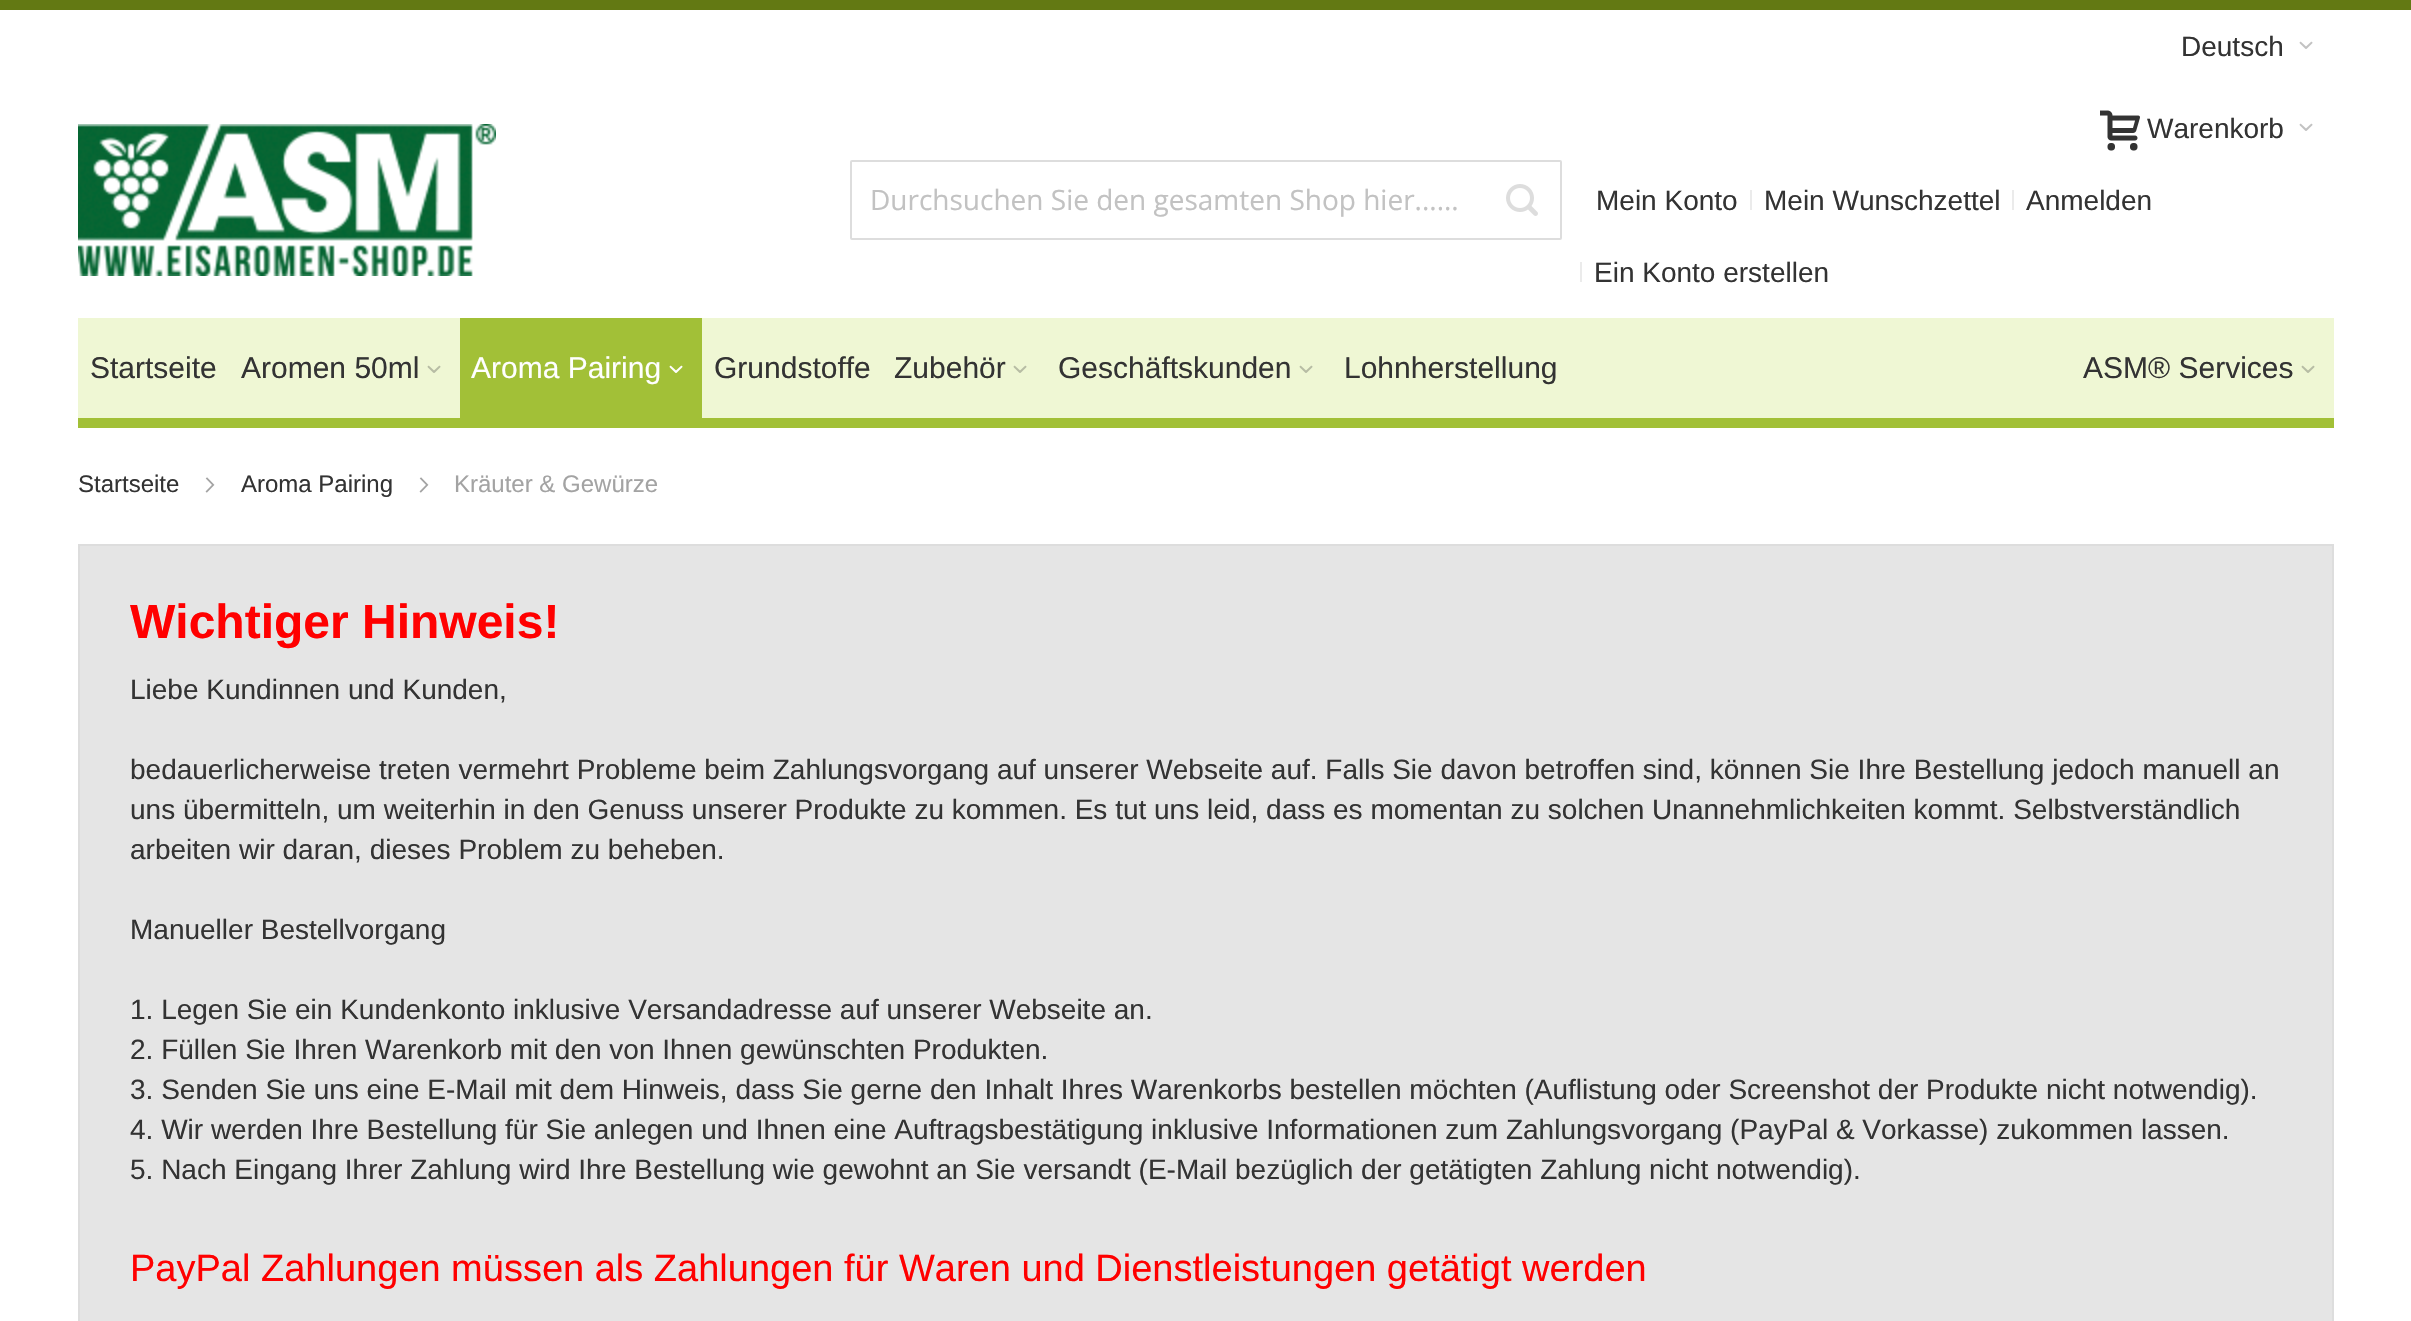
#include "include/core/SkBlurTypes.h"
#include "include/core/SkCanvas.h"
#include "include/core/SkData.h"
#include "include/core/SkFont.h"
#include "include/core/SkFontMgr.h"
#include "include/core/SkImage.h"
#include "include/core/SkMaskFilter.h"
#include "include/core/SkPaint.h"
#include "include/core/SkPathBuilder.h"
#include "include/core/SkTextBlob.h"
#include "include/effects/SkDashPathEffect.h"
#include "include/effects/SkGradientShader.h"
#include "include/utils/SkParsePath.h"

extern sk_sp<SkFontMgr> fontMgr;

void draw(SkCanvas* canvas) {
  SkPaint p;
  p.setAntiAlias(true);
  canvas->clear(SK_ColorWHITE);
  p.setColor(SkColorSetRGB(99, 121, 19));
  canvas->drawRect(SkRect::MakeLTRB(0, 0, 2411, 10), p);
  canvas->drawImageRect(SkImages::DeferredFromEncodedData(SkData::MakeFromFileName("images/1.png")), SkRect::MakeLTRB(2299, 41, 2313, 49), SkSamplingOptions());
  canvas->drawImageRect(SkImages::DeferredFromEncodedData(SkData::MakeFromFileName("images/2.png")), SkRect::MakeLTRB(78, 124, 496, 276), SkSamplingOptions());
  p.setStyle(SkPaint::kStroke_Style);
  p.setStrokeWidth(2);
  p.setColor(SkColorSetRGB(221, 221, 221));
  canvas->drawRoundRect(SkRect::MakeLTRB(851, 161, 1561, 239), 1, 1, p);
  canvas->drawImageRect(SkImages::DeferredFromEncodedData(SkData::MakeFromFileName("images/3.png")), SkRect::MakeLTRB(1506, 184, 1538, 216), SkSamplingOptions());
  canvas->drawImageRect(SkImages::DeferredFromEncodedData(SkData::MakeFromFileName("images/4.png")), SkRect::MakeLTRB(2100, 110, 2140, 151), SkSamplingOptions());
  canvas->drawImageRect(SkImages::DeferredFromEncodedData(SkData::MakeFromFileName("images/1.png")), SkRect::MakeLTRB(2299, 123, 2313, 131), SkSamplingOptions());
  p.setStyle(SkPaint::kFill_Style);
  p.setColor(SkColorSetRGB(235, 235, 235));
  canvas->drawRect(SkRect::MakeLTRB(1750, 190, 1752, 210), p);
  canvas->drawRect(SkRect::MakeLTRB(2012, 190, 2014, 210), p);
  canvas->drawRect(SkRect::MakeLTRB(1580, 262, 1582, 282), p);
  p.setColor(SkColorSetRGB(239, 247, 212));
  canvas->drawRect(SkRect::MakeLTRB(78, 318, 2334, 418), p);
  canvas->drawImageRect(SkImages::DeferredFromEncodedData(SkData::MakeFromFileName("images/5.png")), SkRect::MakeLTRB(427, 365, 441, 373), SkSamplingOptions());
  p.setColor(SkColorSetRGB(162, 192, 55));
  canvas->drawRect(SkRect::MakeLTRB(460, 318, 702, 418), p);
  canvas->drawImageRect(SkImages::DeferredFromEncodedData(SkData::MakeFromFileName("images/6.png")), SkRect::MakeLTRB(669, 365, 683, 373), SkSamplingOptions());
  canvas->drawImageRect(SkImages::DeferredFromEncodedData(SkData::MakeFromFileName("images/5.png")), SkRect::MakeLTRB(1013, 365, 1027, 373), SkSamplingOptions());
  canvas->drawImageRect(SkImages::DeferredFromEncodedData(SkData::MakeFromFileName("images/5.png")), SkRect::MakeLTRB(1299, 365, 1313, 373), SkSamplingOptions());
  canvas->drawImageRect(SkImages::DeferredFromEncodedData(SkData::MakeFromFileName("images/5.png")), SkRect::MakeLTRB(2301, 365, 2315, 373), SkSamplingOptions());
  canvas->drawRect(SkRect::MakeLTRB(78, 418, 2334, 428), p);
  canvas->drawImageRect(SkImages::DeferredFromEncodedData(SkData::MakeFromFileName("images/7.png")), SkRect::MakeLTRB(205, 477, 215, 493), SkSamplingOptions());
  canvas->drawImageRect(SkImages::DeferredFromEncodedData(SkData::MakeFromFileName("images/7.png")), SkRect::MakeLTRB(419, 477, 429, 493), SkSamplingOptions());
  p.setColor(SkColorSetRGB(229, 229, 229));
  canvas->drawRect(SkRect::MakeLTRB(79, 545, 2333, 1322), p);
  p.setStyle(SkPaint::kStroke_Style);
  p.setColor(SkColorSetRGB(221, 221, 221));
  canvas->drawRect(SkRect::MakeLTRB(79, 545, 2333, 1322), p);
  SkFont font1(fontMgr->matchFamilyStyle("Liberation Sans", SkFontStyle::Normal()), 28);
  font1.setSubpixel(true);
  p.setStyle(SkPaint::kFill_Style);
  p.setColor(SkColorSetRGB(51, 51, 51));
  canvas->drawString("Deutsch", 2181, 56, font1, p);
  SkFont font2(fontMgr->matchFamilyStyle("Open Sans", SkFontStyle::Normal()), 28);
  font2.setSubpixel(true);
  p.setColor(SkColorSetRGB(194, 194, 194));
  canvas->drawString("Durchsuchen Sie den gesamten Shop hier......", 870, 210, font2, p);
  p.setColor(SkColorSetRGB(51, 51, 51));
  canvas->drawString("Warenkorb", 2147, 138, font1, p);
  canvas->drawString("Mein Konto", 1596, 210, font1, p);
  canvas->drawString("Mein Wunschzettel", 1764, 210, font1, p);
  canvas->drawString("Anmelden", 2026, 210, font1, p);
  canvas->drawString("Ein Konto erstellen", 1594, 282, font1, p);
  SkFont font3(fontMgr->matchFamilyStyle("Liberation Sans", SkFontStyle::Normal()), 30);
  font3.setSubpixel(true);
  canvas->drawString("Startseite", 90, 378, font3, p);
  canvas->drawString("Aromen 50ml", 241, 378, font3, p);
  p.setColor(SK_ColorWHITE);
  canvas->drawString("Aroma Pairing", 471, 378, font3, p);
  p.setColor(SkColorSetRGB(51, 51, 51));
  canvas->drawString("Grundstoffe", 714, 378, font3, p);
  canvas->drawString("Zubehör", 894, 378, font3, p);
  canvas->drawString("Geschäftskunden", 1058, 378, font3, p);
  canvas->drawString("Lohnherstellung", 1344, 378, font3, p);
  canvas->drawString("ASM® Services", 2083, 378, font3, p);
  SkFont font4(fontMgr->matchFamilyStyle("Liberation Sans", SkFontStyle::Normal()), 24);
  font4.setSubpixel(true);
  canvas->drawString("Startseite", 78, 492, font4, p);
  canvas->drawString("Aroma Pairing", 241, 492, font4, p);
  p.setColor(SkColorSetRGB(163, 163, 163));
  canvas->drawString("Kräuter & Gewürze", 454, 492, font4, p);
  SkFont font5(fontMgr->matchFamilyStyle("Liberation Sans", SkFontStyle::Bold()), 48);
  font5.setSubpixel(true);
  p.setColor(SkColorSetRGB(255, 0, 0));
  canvas->drawString("Wichtiger Hinweis!", 130, 638, font5, p);
  p.setColor(SkColorSetRGB(51, 51, 51));
  canvas->drawString("Liebe Kundinnen und Kunden,", 130, 699, font1, p);
  canvas->drawString("bedauerlicherweise treten vermehrt Probleme beim Zahlungsvorgang auf unserer Webseite auf. Falls Sie davon betroffen sind, können Sie Ihre Bestellung jedoch manuell an", 130, 779, font1, p);
  canvas->drawString("uns übermitteln, um weiterhin in den Genuss unserer Produkte zu kommen. Es tut uns leid, dass es momentan zu solchen Unannehmlichkeiten kommt. Selbstverständlich", 130, 819, font1, p);
  canvas->drawString("arbeiten wir daran, dieses Problem zu beheben.", 130, 859, font1, p);
  canvas->drawString("Manueller Bestellvorgang", 130, 939, font1, p);
  canvas->drawString("1. Legen Sie ein Kundenkonto inklusive Versandadresse auf unserer Webseite an.", 130, 1019, font1, p);
  canvas->drawString("2. Füllen Sie Ihren Warenkorb mit den von Ihnen gewünschten Produkten.", 130, 1059, font1, p);
  canvas->drawString("3. Senden Sie uns eine E-Mail mit dem Hinweis, dass Sie gerne den Inhalt Ihres Warenkorbs bestellen möchten (Auflistung oder Screenshot der Produkte nicht notwendig).", 130, 1099, font1, p);
  canvas->drawString("4. Wir werden Ihre Bestellung für Sie anlegen und Ihnen eine Auftragsbestätigung inklusive Informationen zum Zahlungsvorgang (PayPal & Vorkasse) zukommen lassen.", 130, 1139, font1, p);
  canvas->drawString("5. Nach Eingang Ihrer Zahlung wird Ihre Bestellung wie gewohnt an Sie versandt (E-Mail bezüglich der getätigten Zahlung nicht notwendig).", 130, 1179, font1, p);
  SkFont font6(fontMgr->matchFamilyStyle("Liberation Sans", SkFontStyle::Normal()), 38);
  font6.setSubpixel(true);
  p.setColor(SkColorSetRGB(255, 0, 0));
  canvas->drawString("PayPal Zahlungen müssen als Zahlungen für Waren und Dienstleistungen getätigt werden", 130, 1281, font6, p);
}
